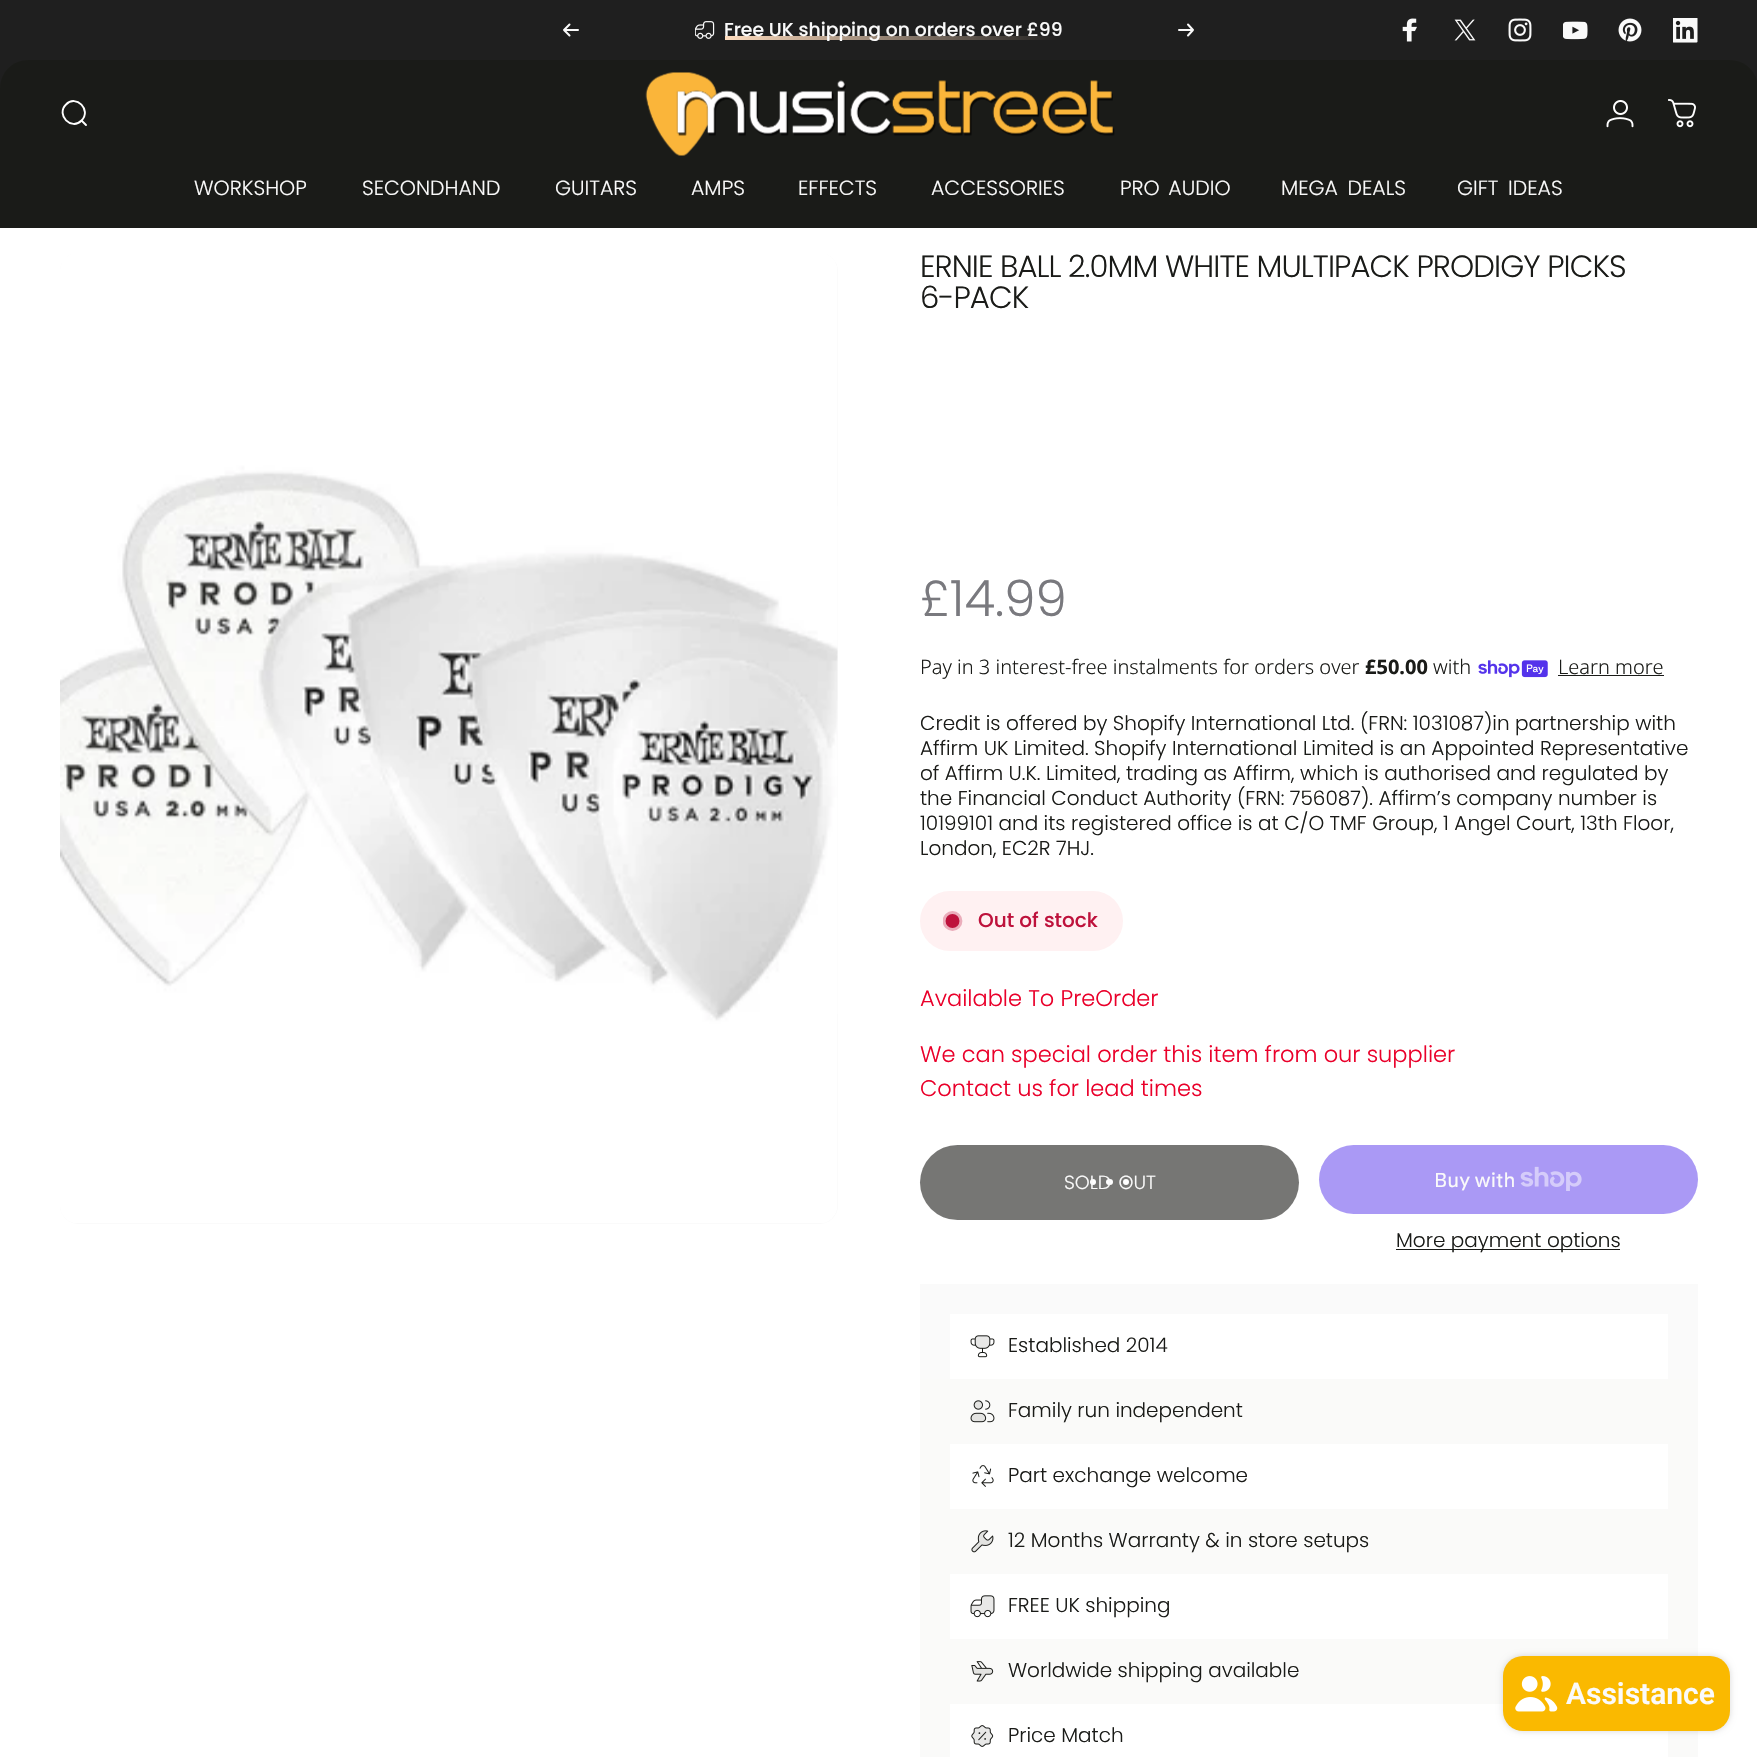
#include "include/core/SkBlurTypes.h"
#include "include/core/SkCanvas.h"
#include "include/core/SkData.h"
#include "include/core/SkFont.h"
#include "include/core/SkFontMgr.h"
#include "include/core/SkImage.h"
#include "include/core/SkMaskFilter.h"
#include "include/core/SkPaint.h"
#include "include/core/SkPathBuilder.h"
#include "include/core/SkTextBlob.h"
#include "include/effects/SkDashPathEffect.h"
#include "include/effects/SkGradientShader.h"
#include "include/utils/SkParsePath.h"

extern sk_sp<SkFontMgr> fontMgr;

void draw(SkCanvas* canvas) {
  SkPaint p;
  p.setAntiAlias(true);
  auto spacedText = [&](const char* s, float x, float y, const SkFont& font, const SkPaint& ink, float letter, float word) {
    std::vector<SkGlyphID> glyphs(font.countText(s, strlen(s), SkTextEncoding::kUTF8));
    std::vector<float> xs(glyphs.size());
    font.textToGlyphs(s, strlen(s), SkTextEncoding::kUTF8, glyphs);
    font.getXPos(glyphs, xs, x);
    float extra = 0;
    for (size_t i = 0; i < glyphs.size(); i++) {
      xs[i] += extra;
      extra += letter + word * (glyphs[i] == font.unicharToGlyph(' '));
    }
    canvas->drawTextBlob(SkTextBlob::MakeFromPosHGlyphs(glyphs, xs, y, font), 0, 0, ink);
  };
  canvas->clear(SK_ColorWHITE);
  p.setColor(SkColorSetRGB(31, 31, 31));
  canvas->drawRect(SkRect::MakeLTRB(0, 0, 1757, 28), p);
  canvas->drawPath(SkPathBuilder().moveTo(28, 0).lineTo(1730, 0).cubicTo(1745.5f, 0, 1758, 12.5f, 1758, 28).lineTo(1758, 88).lineTo(0, 88).lineTo(0, 28).cubicTo(0, 12.5f, 12.5f, 0, 28, 0).close().detach(), p);
  p.setStyle(SkPaint::kStroke_Style);
  p.setStrokeWidth(2);
  p.setStrokeCap(SkPaint::kRound_Cap);
  p.setStrokeJoin(SkPaint::kRound_Join);
  p.setColor(SkColorSetRGB(250, 250, 250));
  canvas->drawPath(SkPathBuilder().moveTo(569.5f, 24.5f).lineTo(564, 30).moveTo(564, 30).lineTo(569.5f, 35.5f).moveTo(564, 30).lineTo(578, 30).detach(), p);
  canvas->drawImageRect(SkImages::DeferredFromEncodedData(SkData::MakeFromFileName("images/1.png")), SkRect::MakeLTRB(695, 21, 715, 39), SkSamplingOptions());
  p.setStyle(SkPaint::kFill_Style);
  {
    const SkColor colors[] = {SkColorSetRGB(255, 221, 191), SkColorSetRGB(31, 31, 31)};
    const float stops[] = {0, 1};
    const SkPoint ends[] = {{724, 38}, {1063, 38}};
    p.setShader(SkGradientShader::MakeLinear(ends, colors, stops, 2, SkTileMode::kClamp));
    p.setAlpha(255);
  }
  canvas->drawRect(SkRect::MakeLTRB(725, 36, 1064, 40), p);
  p.setStyle(SkPaint::kStroke_Style);
  p.setShader(nullptr);
  p.setColor(SkColorSetRGB(250, 250, 250));
  canvas->drawPath(SkPathBuilder().moveTo(1179, 30).lineTo(1193, 30).moveTo(1193, 30).lineTo(1188, 24.5f).moveTo(1193, 30).lineTo(1188, 35.5f).detach(), p);
  canvas->drawImageRect(SkImages::DeferredFromEncodedData(SkData::MakeFromFileName("images/2.png")), SkRect::MakeLTRB(1402, 18, 1417, 42), SkSamplingOptions());
  canvas->drawImageRect(SkImages::DeferredFromEncodedData(SkData::MakeFromFileName("images/3.png")), SkRect::MakeLTRB(1454, 19, 1476, 41), SkSamplingOptions());
  canvas->drawImageRect(SkImages::DeferredFromEncodedData(SkData::MakeFromFileName("images/4.png")), SkRect::MakeLTRB(1508, 18, 1532, 42), SkSamplingOptions());
  canvas->drawImageRect(SkImages::DeferredFromEncodedData(SkData::MakeFromFileName("images/5.png")), SkRect::MakeLTRB(1563, 21, 1588, 40), SkSamplingOptions());
  canvas->drawImageRect(SkImages::DeferredFromEncodedData(SkData::MakeFromFileName("images/6.png")), SkRect::MakeLTRB(1618, 18, 1642, 42), SkSamplingOptions());
  canvas->drawImageRect(SkImages::DeferredFromEncodedData(SkData::MakeFromFileName("images/7.png")), SkRect::MakeLTRB(1673, 18, 1698, 43), SkSamplingOptions());
  p.setStyle(SkPaint::kFill_Style);
  p.setColor(SkColorSetRGB(26, 27, 24));
  canvas->drawPath(SkPathBuilder().moveTo(28, 60).lineTo(1730, 60).cubicTo(1745.5f, 60, 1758, 72.5f, 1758, 88).lineTo(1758, 228).lineTo(0, 228).lineTo(0, 88).cubicTo(0, 72.5f, 12.5f, 60, 28, 60).close().detach(), p);
  p.setStyle(SkPaint::kStroke_Style);
  p.setStrokeWidth(1.9f);
  p.setStrokeJoin(SkPaint::kMiter_Join);
  p.setColor(SK_ColorWHITE);
  canvas->drawPath(SkPathBuilder().moveTo(86, 125).lineTo(81.5f, 120.5f).moveTo(81.5f, 120.5f).cubicTo(92, 110, 76, 94, 66, 104.5f).cubicTo(55.5f, 115, 71.5f, 131, 81.5f, 120.5f).close().detach(), p);
  canvas->drawImageRect(SkImages::DeferredFromEncodedData(SkData::MakeFromFileName("images/8.png")), SkRect::MakeLTRB(645, 72, 1115, 156), SkSamplingOptions());
  canvas->drawImageRect(SkImages::DeferredFromEncodedData(SkData::MakeFromFileName("images/9.png")), SkRect::MakeLTRB(1606, 100, 1634, 128), SkSamplingOptions());
  canvas->drawImageRect(SkImages::DeferredFromEncodedData(SkData::MakeFromFileName("images/10.png")), SkRect::MakeLTRB(1668, 99, 1696, 128), SkSamplingOptions());
  p.setStyle(SkPaint::kFill_Style);
  p.setColor(SkColorSetRGB(250, 250, 250));
  canvas->drawRoundRect(SkRect::MakeLTRB(60, 253, 838, 1224), 19, 19, p);
  canvas->drawImageRect(SkImages::DeferredFromEncodedData(SkData::MakeFromFileName("images/11.png")), SkRect::MakeLTRB(60, 253, 838, 1223), SkSamplingOptions());
  canvas->drawImageRect(SkImages::DeferredFromEncodedData(SkData::MakeFromFileName("images/12.png")), SkRect::MakeLTRB(1478, 660, 1548, 678), SkSamplingOptions());
  p.setColor(SkColorSetRGB(26, 27, 24));
  canvas->drawRect(SkRect::MakeLTRB(1558, 675, 1664, 676), p);
  p.setColor(SkColorSetRGB(255, 241, 242));
  canvas->drawRoundRect(SkRect::MakeLTRB(920, 891, 1123, 951), 30, 30, p);
  p.setColor(SkColorSetRGB(190, 18, 60));
  canvas->drawCircle(952.5f, 921, 6, p);
  p.setStyle(SkPaint::kStroke_Style);
  p.setStrokeCap(SkPaint::kButt_Cap);
  canvas->drawCircle(952.5f, 921, 6, p);
  canvas->save();
  canvas->clipRect(SkRect::MakeLTRB(943, 911, 963, 931));
  p.setStrokeWidth(3.8f);
  p.setColor(SkColorSetARGB(77, 190, 18, 60));
  canvas->drawCircle(952.5f, 921, 8, p);
  canvas->restore();
  p.setStyle(SkPaint::kFill_Style);
  p.setColor(SkColorSetRGB(118, 118, 116));
  canvas->drawRoundRect(SkRect::MakeLTRB(920, 1145, 1299, 1220), 37.5f, 37.5f, p);
  p.setColor(SK_ColorWHITE);
  canvas->drawCircle(1093, 1182, 3, p);
  canvas->drawRoundRect(SkRect::MakeLTRB(1106, 1179, 1113, 1185), 3, 3, p);
  canvas->drawCircle(1126, 1182, 3, p);
  p.setColor(SkColorSetRGB(170, 153, 245));
  canvas->drawRoundRect(SkRect::MakeLTRB(1319, 1145, 1698, 1214), 34.5f, 34.5f, p);
  canvas->drawImageRect(SkImages::DeferredFromEncodedData(SkData::MakeFromFileName("images/13.png")), SkRect::MakeLTRB(1520, 1166, 1582, 1191), SkSamplingOptions());
  p.setColor(SkColorSetRGB(26, 27, 24));
  canvas->drawRect(SkRect::MakeLTRB(1396, 1249, 1620, 1250), p);
  p.setColor(SkColorSetRGB(250, 250, 250));
  canvas->drawRect(SkRect::MakeLTRB(920, 1284, 1698, 1379), p);
  p.setColor(SK_ColorWHITE);
  canvas->drawRect(SkRect::MakeLTRB(950, 1314, 1668, 1379), p);
  canvas->drawImageRect(SkImages::DeferredFromEncodedData(SkData::MakeFromFileName("images/14.png")), SkRect::MakeLTRB(970, 1335, 995, 1358), SkSamplingOptions());
  p.setColor(SkColorSetRGB(250, 250, 249));
  canvas->drawRect(SkRect::MakeLTRB(920, 1379, 1698, 1757), p);
  canvas->drawImageRect(SkImages::DeferredFromEncodedData(SkData::MakeFromFileName("images/15.png")), SkRect::MakeLTRB(970, 1400, 995, 1423), SkSamplingOptions());
  p.setColor(SK_ColorWHITE);
  canvas->drawRect(SkRect::MakeLTRB(950, 1444, 1668, 1509), p);
  canvas->drawImageRect(SkImages::DeferredFromEncodedData(SkData::MakeFromFileName("images/16.png")), SkRect::MakeLTRB(972, 1465, 994, 1487), SkSamplingOptions());
  canvas->drawImageRect(SkImages::DeferredFromEncodedData(SkData::MakeFromFileName("images/17.png")), SkRect::MakeLTRB(971, 1530, 994, 1553), SkSamplingOptions());
  canvas->drawRect(SkRect::MakeLTRB(950, 1574, 1668, 1639), p);
  canvas->drawImageRect(SkImages::DeferredFromEncodedData(SkData::MakeFromFileName("images/18.png")), SkRect::MakeLTRB(970, 1595, 995, 1618), SkSamplingOptions());
  canvas->drawImageRect(SkImages::DeferredFromEncodedData(SkData::MakeFromFileName("images/19.png")), SkRect::MakeLTRB(971, 1661, 994, 1682), SkSamplingOptions());
  canvas->drawRect(SkRect::MakeLTRB(950, 1704, 1668, 1757), p);
  canvas->drawImageRect(SkImages::DeferredFromEncodedData(SkData::MakeFromFileName("images/20.png")), SkRect::MakeLTRB(971, 1725, 994, 1747), SkSamplingOptions());
  p.setColor(SkColorSetARGB(38, 0, 0, 0));
  p.setMaskFilter(SkMaskFilter::MakeBlur(kNormal_SkBlurStyle, 3));
  canvas->drawRoundRect(SkRect::MakeLTRB(1503, 1656, 1730, 1731), 20, 20, p);
  p.setMaskFilter(nullptr);
  p.setColor(SkColorSetRGB(250, 185, 0));
  canvas->drawRoundRect(SkRect::MakeLTRB(1503, 1656, 1730, 1731), 20, 20, p);
  canvas->drawImageRect(SkImages::DeferredFromEncodedData(SkData::MakeFromFileName("images/21.png")), SkRect::MakeLTRB(1515, 1676, 1558, 1712), SkSamplingOptions());
  SkFont font1(fontMgr->matchFamilyStyle("Poppins", SkFontStyle(500, SkFontStyle::kNormal_Width, SkFontStyle::kUpright_Slant)), 18.75f);
  font1.setSubpixel(true);
  p.setColor(SkColorSetRGB(250, 250, 250));
  canvas->drawString("Free UK shipping on orders over £99", 724, 36, font1, p);
  SkFont font2(fontMgr->matchFamilyStyle("Poppins", SkFontStyle(300, SkFontStyle::kNormal_Width, SkFontStyle::kUpright_Slant)), 20.5f);
  font2.setSubpixel(true);
  canvas->drawString("WORKSHOP", 194, 195, font2, p);
  canvas->drawString("SECONDHAND", 362, 195, font2, p);
  canvas->drawString("GUITARS", 555, 195, font2, p);
  canvas->drawString("AMPS", 691, 195, font2, p);
  canvas->drawString("EFFECTS", 798, 195, font2, p);
  canvas->drawString("ACCESSORIES", 931, 195, font2, p);
  spacedText("PRO AUDIO", 1120, 195, font2, p, 0, 3);
  spacedText("MEGA DEALS", 1281, 195, font2, p, 0, 4);
  spacedText("GIFT IDEAS", 1457, 195, font2, p, 0, 4);
  SkFont font3(fontMgr->matchFamilyStyle("Poppins", SkFontStyle(300, SkFontStyle::kNormal_Width, SkFontStyle::kUpright_Slant)), 30.7f);
  font3.setSubpixel(true);
  p.setColor(SkColorSetRGB(26, 27, 24));
  spacedText("ERNIE BALL 2.0MM WHITE MULTIPACK PRODIGY PICKS", 920, 277, font3, p, -0.9f, 0);
  spacedText("6-PACK", 920, 308, font3, p, -0.9f, 0);
  SkFont font4(fontMgr->matchFamilyStyle("Poppins", SkFontStyle(300, SkFontStyle::kNormal_Width, SkFontStyle::kUpright_Slant)), 50);
  font4.setSubpixel(true);
  p.setColor(SkColorSetRGB(121, 121, 126));
  canvas->drawString("£14.99", 920, 616, font4, p);
  SkFont font5(fontMgr->matchFamilyStyle("Noto Sans", SkFontStyle(300, SkFontStyle::kNormal_Width, SkFontStyle::kUpright_Slant)), 20);
  font5.setSubpixel(true);
  p.setColor(SkColorSetRGB(26, 27, 24));
  canvas->drawString("Pay in 3 interest-free instalments for orders over", 920, 674, font5, p);
  SkFont font6(fontMgr->matchFamilyStyle("Noto Sans", SkFontStyle::Bold()), 20);
  font6.setSubpixel(true);
  canvas->drawString("£50.00", 1365, 674, font6, p);
  canvas->drawString("with", 1433, 674, font5, p);
  canvas->drawString("Learn more", 1558, 674, font5, p);
  SkFont font7(fontMgr->matchFamilyStyle("Poppins", SkFontStyle(300, SkFontStyle::kNormal_Width, SkFontStyle::kUpright_Slant)), 20);
  font7.setSubpixel(true);
  canvas->drawString("Credit is offered by Shopify International Ltd. (FRN: 1031087)in partnership with", 920, 730, font7, p);
  canvas->drawString("Affirm UK Limited. Shopify International Limited is an Appointed Representative", 920, 755, font7, p);
  canvas->drawString("of Affirm U.K. Limited, trading as Affirm, which is authorised and regulated by", 920, 780, font7, p);
  canvas->drawString("the Financial Conduct Authority (FRN: 756087). Affirm’s company number is", 920, 805, font7, p);
  canvas->drawString("10199101 and its registered office is at C/O TMF Group, 1 Angel Court, 13th Floor,", 920, 830, font7, p);
  canvas->drawString("London, EC2R 7HJ.", 920, 855, font7, p);
  SkFont font8(fontMgr->matchFamilyStyle("Poppins", SkFontStyle(500, SkFontStyle::kNormal_Width, SkFontStyle::kUpright_Slant)), 20);
  font8.setSubpixel(true);
  p.setColor(SkColorSetRGB(190, 18, 60));
  canvas->drawString("Out of stock", 978, 927, font8, p);
  SkFont font9(fontMgr->matchFamilyStyle("Poppins", SkFontStyle(300, SkFontStyle::kNormal_Width, SkFontStyle::kUpright_Slant)), 22.5f);
  font9.setSubpixel(true);
  p.setColor(SkColorSetRGB(234, 0, 42));
  canvas->drawString("Available To PreOrder", 920, 1006, font9, p);
  canvas->drawString("We can special order this item from our supplier", 920, 1062, font9, p);
  canvas->drawString("Contact us for lead times", 920, 1096, font9, p);
  SkFont font10(fontMgr->matchFamilyStyle("Poppins", SkFontStyle(300, SkFontStyle::kNormal_Width, SkFontStyle::kUpright_Slant)), 19);
  font10.setSubpixel(true);
  p.setColor(SkColorSetRGB(250, 250, 250));
  spacedText("SOLD OUT", 1064, 1189, font10, p, 0, 2);
  SkFont font11(fontMgr->matchFamilyStyle("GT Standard", SkFontStyle::Normal()), 20);
  font11.setSubpixel(true);
  canvas->drawString("Buy with", 1434, 1187, font11, p);
  p.setColor(SkColorSetRGB(26, 27, 24));
  canvas->drawString("More payment options", 1396, 1247, font7, p);
  canvas->drawString("Established 2014", 1008, 1352, font7, p);
  canvas->drawString("Family run independent", 1008, 1417, font7, p);
  canvas->drawString("Part exchange welcome", 1008, 1482, font7, p);
  canvas->drawString("12 Months Warranty & in store setups", 1008, 1547, font7, p);
  canvas->drawString("FREE UK shipping", 1008, 1612, font7, p);
  canvas->drawString("Worldwide shipping available", 1008, 1677, font7, p);
  canvas->drawString("Price Match", 1008, 1742, font7, p);
  SkFont font12(fontMgr->matchFamilyStyle("Roboto", SkFontStyle(600, SkFontStyle::kNormal_Width, SkFontStyle::kUpright_Slant)), 30);
  font12.setSubpixel(true);
  p.setColor(SkColorSetRGB(250, 250, 250));
  canvas->drawString("Assistance", 1566, 1704, font12, p);
}
